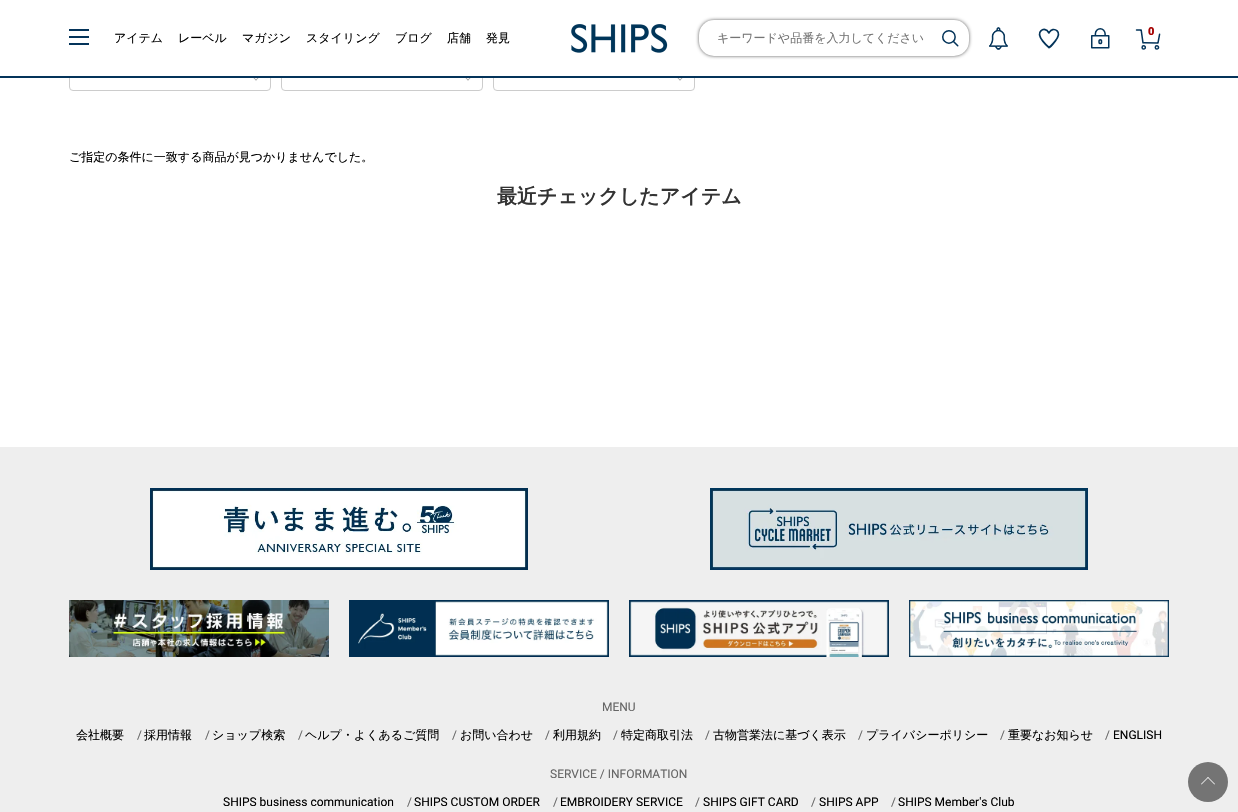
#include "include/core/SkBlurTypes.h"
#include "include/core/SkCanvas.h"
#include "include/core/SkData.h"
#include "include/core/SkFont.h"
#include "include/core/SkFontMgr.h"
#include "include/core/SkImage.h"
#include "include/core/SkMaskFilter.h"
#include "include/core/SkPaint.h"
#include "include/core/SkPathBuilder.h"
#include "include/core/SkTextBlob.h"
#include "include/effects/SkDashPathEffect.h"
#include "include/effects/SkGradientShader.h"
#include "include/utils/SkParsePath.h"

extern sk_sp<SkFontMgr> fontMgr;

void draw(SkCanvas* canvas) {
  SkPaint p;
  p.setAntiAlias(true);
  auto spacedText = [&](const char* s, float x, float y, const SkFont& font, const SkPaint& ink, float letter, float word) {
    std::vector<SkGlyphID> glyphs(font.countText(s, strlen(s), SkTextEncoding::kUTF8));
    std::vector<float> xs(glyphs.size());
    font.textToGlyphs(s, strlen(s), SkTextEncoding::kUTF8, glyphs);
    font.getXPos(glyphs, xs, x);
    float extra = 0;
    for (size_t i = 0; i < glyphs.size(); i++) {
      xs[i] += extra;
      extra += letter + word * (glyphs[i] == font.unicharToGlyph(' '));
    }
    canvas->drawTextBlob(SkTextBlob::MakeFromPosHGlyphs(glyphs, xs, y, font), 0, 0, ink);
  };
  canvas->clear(SK_ColorWHITE);
  p.setStyle(SkPaint::kStroke_Style);
  p.setStrokeWidth(1);
  p.setColor(SkColorSetRGB(204, 204, 204));
  canvas->drawRoundRect(SkRect::MakeLTRB(69.5f, 61.5f, 270.5f, 90.5f), 3.5f, 3.5f, p);
  p.setStyle(SkPaint::kFill_Style);
  p.setColor(SkColorSetRGB(153, 153, 153));
  canvas->drawPath(SkPathBuilder().moveTo(261, 74.5f).lineTo(261.5f, 75).lineTo(256, 80.5f).lineTo(255.5f, 80).close().detach(), p);
  canvas->drawPath(SkPathBuilder().moveTo(251, 74.5f).lineTo(256.5f, 80).lineTo(256, 80.5f).lineTo(250.5f, 75).close().detach(), p);
  p.setStyle(SkPaint::kStroke_Style);
  p.setColor(SkColorSetRGB(204, 204, 204));
  canvas->drawRoundRect(SkRect::MakeLTRB(281.5f, 61.5f, 482.5f, 90.5f), 3.5f, 3.5f, p);
  p.setStyle(SkPaint::kFill_Style);
  p.setColor(SkColorSetRGB(153, 153, 153));
  canvas->drawPath(SkPathBuilder().moveTo(473, 74.5f).lineTo(473.5f, 75).lineTo(468, 80.5f).lineTo(467.5f, 80).close().detach(), p);
  canvas->drawPath(SkPathBuilder().moveTo(463, 74.5f).lineTo(468.5f, 80).lineTo(468, 80.5f).lineTo(462.5f, 75).close().detach(), p);
  p.setStyle(SkPaint::kStroke_Style);
  p.setColor(SkColorSetRGB(204, 204, 204));
  canvas->drawRoundRect(SkRect::MakeLTRB(493.5f, 61.5f, 694.5f, 90.5f), 3.5f, 3.5f, p);
  p.setStyle(SkPaint::kFill_Style);
  p.setColor(SkColorSetRGB(153, 153, 153));
  canvas->drawPath(SkPathBuilder().moveTo(685, 74.5f).lineTo(685.5f, 75).lineTo(680, 80.5f).lineTo(679.5f, 80).close().detach(), p);
  canvas->drawPath(SkPathBuilder().moveTo(675, 74.5f).lineTo(680.5f, 80).lineTo(680, 80.5f).lineTo(674.5f, 75).close().detach(), p);
  p.setColor(SK_ColorWHITE);
  canvas->drawRect(SkRect::MakeLTRB(69, 61, 695, 76), p);
  p.setColor(SkColorSetRGB(4, 52, 90));
  canvas->drawRect(SkRect::MakeLTRB(0, 76, 1238, 78), p);
  canvas->drawRect(SkRect::MakeLTRB(69, 36, 89, 38), p);
  canvas->drawRect(SkRect::MakeLTRB(69, 29, 89, 31), p);
  canvas->drawRect(SkRect::MakeLTRB(69, 43, 89, 45), p);
  canvas->drawImageRect(SkImages::DeferredFromEncodedData(SkData::MakeFromFileName("images/1.png")), SkRect::MakeLTRB(571, 24, 668, 53), SkSamplingOptions());
  p.setColor(SK_ColorBLACK);
  p.setMaskFilter(SkMaskFilter::MakeBlur(kNormal_SkBlurStyle, 2));
  canvas->drawRoundRect(SkRect::MakeLTRB(700, 21, 968, 55), 14, 14, p);
  p.setMaskFilter(nullptr);
  p.setColor(SK_ColorWHITE);
  canvas->drawRoundRect(SkRect::MakeLTRB(699, 20, 969, 56), 15, 15, p);
  canvas->drawImageRect(SkImages::DeferredFromEncodedData(SkData::MakeFromFileName("images/2.png")), SkRect::MakeLTRB(942, 30, 959, 47), SkSamplingOptions());
  canvas->drawImageRect(SkImages::DeferredFromEncodedData(SkData::MakeFromFileName("images/3.png")), SkRect::MakeLTRB(989, 27, 1008, 50), SkSamplingOptions());
  canvas->drawImageRect(SkImages::DeferredFromEncodedData(SkData::MakeFromFileName("images/4.png")), SkRect::MakeLTRB(1038, 28, 1060, 49), SkSamplingOptions());
  canvas->drawImageRect(SkImages::DeferredFromEncodedData(SkData::MakeFromFileName("images/5.png")), SkRect::MakeLTRB(1091, 28, 1110, 49), SkSamplingOptions());
  canvas->drawImageRect(SkImages::DeferredFromEncodedData(SkData::MakeFromFileName("images/6.png")), SkRect::MakeLTRB(1135, 29, 1161, 50), SkSamplingOptions());
  p.setColor(SkColorSetRGB(238, 238, 238));
  canvas->drawRect(SkRect::MakeLTRB(0, 447, 1238, 812), p);
  canvas->drawImageRect(SkImages::DeferredFromEncodedData(SkData::MakeFromFileName("images/7.png")), SkRect::MakeLTRB(150, 488, 528, 570), SkSamplingOptions());
  canvas->drawImageRect(SkImages::DeferredFromEncodedData(SkData::MakeFromFileName("images/8.png")), SkRect::MakeLTRB(710, 488, 1088, 570), SkSamplingOptions());
  canvas->drawImageRect(SkImages::DeferredFromEncodedData(SkData::MakeFromFileName("images/9.png")), SkRect::MakeLTRB(69, 600, 329, 657), SkSamplingOptions());
  canvas->drawImageRect(SkImages::DeferredFromEncodedData(SkData::MakeFromFileName("images/10.png")), SkRect::MakeLTRB(349, 600, 609, 657), SkSamplingOptions());
  canvas->drawImageRect(SkImages::DeferredFromEncodedData(SkData::MakeFromFileName("images/11.png")), SkRect::MakeLTRB(629, 600, 889, 657), SkSamplingOptions());
  canvas->drawImageRect(SkImages::DeferredFromEncodedData(SkData::MakeFromFileName("images/12.png")), SkRect::MakeLTRB(909, 600, 1169, 657), SkSamplingOptions());
  p.setColor(SkColorSetRGB(116, 116, 116));
  canvas->drawCircle(1208, 782, 20, p);
  p.setColor(SK_ColorWHITE);
  canvas->drawPath(SkPathBuilder().moveTo(1208, 777).lineTo(1215, 784).lineTo(1214.5f, 784.5f).lineTo(1207.5f, 777.5f).close().detach(), p);
  canvas->drawPath(SkPathBuilder().moveTo(1208, 777).lineTo(1208.5f, 777.5f).lineTo(1201.5f, 784.5f).lineTo(1201, 784).close().detach(), p);
  SkFont font1(fontMgr->matchFamilyStyle("WenQuanYi Zen Hei", SkFontStyle(500, SkFontStyle::kNormal_Width, SkFontStyle::kUpright_Slant)), 12);
  font1.setSubpixel(true);
  p.setColor(SK_ColorBLACK);
  canvas->drawString("アイテム", 114, 42, font1, p);
  canvas->drawString("レーベル", 178, 42, font1, p);
  canvas->drawString("マガジン", 242, 42, font1, p);
  canvas->drawString("スタイリング", 306, 42, font1, p);
  canvas->drawString("ブログ", 395, 42, font1, p);
  canvas->drawString("店舗", 447, 42, font1, p);
  canvas->drawString("発見", 486, 42, font1, p);
  p.setColor(SkColorSetRGB(117, 117, 117));
  canvas->drawString("キーワードや品番を入力してください", 717, 42, font1, p);
  SkFont font2(fontMgr->matchFamilyStyle("Roboto", SkFontStyle(900, SkFontStyle::kNormal_Width, SkFontStyle::kUpright_Slant)), 11);
  font2.setSubpixel(true);
  p.setColor(SkColorSetRGB(165, 0, 0));
  spacedText("0", 1148, 35, font2, p, -1, 0);
  p.setColor(SK_ColorBLACK);
  canvas->drawString("ご指定の条件に一致する商品が見つかりませんでした。", 69, 161, font1, p);
  SkFont font3(fontMgr->matchFamilyStyle("WenQuanYi Zen Hei", SkFontStyle::Bold()), 20);
  font3.setSubpixel(true);
  p.setColor(SkColorSetRGB(51, 51, 51));
  canvas->drawString("最近チェックしたアイテム", 497, 203, font3, p);
  SkFont font4(fontMgr->matchFamilyStyle("Roboto", SkFontStyle::Normal()), 12);
  font4.setSubpixel(true);
  p.setColor(SkColorSetRGB(102, 102, 102));
  canvas->drawString("MENU", 602, 711, font4, p);
  p.setColor(SK_ColorBLACK);
  canvas->drawString("会社概要", 76, 739, font1, p);
  p.setColor(SkColorSetRGB(102, 102, 102));
  canvas->drawString("/", 137, 739, font4, p);
  p.setColor(SK_ColorBLACK);
  canvas->drawString("採用情報", 144, 739, font1, p);
  p.setColor(SkColorSetRGB(102, 102, 102));
  canvas->drawString("/", 205, 739, font4, p);
  p.setColor(SK_ColorBLACK);
  canvas->drawString("ショップ検索", 212, 739, font1, p);
  p.setColor(SkColorSetRGB(102, 102, 102));
  canvas->drawString("/", 298, 739, font4, p);
  p.setColor(SK_ColorBLACK);
  canvas->drawString("ヘルプ・よくあるご質問", 305, 739, font1, p);
  p.setColor(SkColorSetRGB(102, 102, 102));
  canvas->drawString("/", 452, 739, font4, p);
  p.setColor(SK_ColorBLACK);
  canvas->drawString("お問い合わせ", 460, 739, font1, p);
  p.setColor(SkColorSetRGB(102, 102, 102));
  canvas->drawString("/", 545, 739, font4, p);
  p.setColor(SK_ColorBLACK);
  canvas->drawString("利用規約", 553, 739, font1, p);
  p.setColor(SkColorSetRGB(102, 102, 102));
  canvas->drawString("/", 613, 739, font4, p);
  p.setColor(SK_ColorBLACK);
  canvas->drawString("特定商取引法", 621, 739, font1, p);
  p.setColor(SkColorSetRGB(102, 102, 102));
  canvas->drawString("/", 705, 739, font4, p);
  p.setColor(SK_ColorBLACK);
  canvas->drawString("古物営業法に基づく表示", 713, 739, font1, p);
  p.setColor(SkColorSetRGB(102, 102, 102));
  canvas->drawString("/", 858, 739, font4, p);
  p.setColor(SK_ColorBLACK);
  canvas->drawString("プライバシーポリシー", 866, 739, font1, p);
  p.setColor(SkColorSetRGB(102, 102, 102));
  canvas->drawString("/", 1000, 739, font4, p);
  p.setColor(SK_ColorBLACK);
  canvas->drawString("重要なお知らせ", 1008, 739, font1, p);
  p.setColor(SkColorSetRGB(102, 102, 102));
  canvas->drawString("/", 1105, 739, font4, p);
  p.setColor(SK_ColorBLACK);
  canvas->drawString("ENGLISH", 1113, 739, font4, p);
  p.setColor(SkColorSetRGB(102, 102, 102));
  canvas->drawString("SERVICE / INFORMATION", 550, 778, font4, p);
  p.setColor(SK_ColorBLACK);
  canvas->drawString("SHIPS business communication", 223, 806, font4, p);
  p.setColor(SkColorSetRGB(102, 102, 102));
  canvas->drawString("/", 407, 806, font4, p);
  p.setColor(SK_ColorBLACK);
  canvas->drawString("SHIPS CUSTOM ORDER", 414, 806, font4, p);
  p.setColor(SkColorSetRGB(102, 102, 102));
  canvas->drawString("/", 553, 806, font4, p);
  p.setColor(SK_ColorBLACK);
  canvas->drawString("EMBROIDERY SERVICE", 560, 806, font4, p);
  p.setColor(SkColorSetRGB(102, 102, 102));
  canvas->drawString("/", 695, 806, font4, p);
  p.setColor(SK_ColorBLACK);
  canvas->drawString("SHIPS GIFT CARD", 703, 806, font4, p);
  p.setColor(SkColorSetRGB(102, 102, 102));
  canvas->drawString("/", 811, 806, font4, p);
  p.setColor(SK_ColorBLACK);
  canvas->drawString("SHIPS APP", 819, 806, font4, p);
  p.setColor(SkColorSetRGB(102, 102, 102));
  canvas->drawString("/", 891, 806, font4, p);
  p.setColor(SK_ColorBLACK);
  canvas->drawString("SHIPS Member's Club", 898, 806, font4, p);
}
